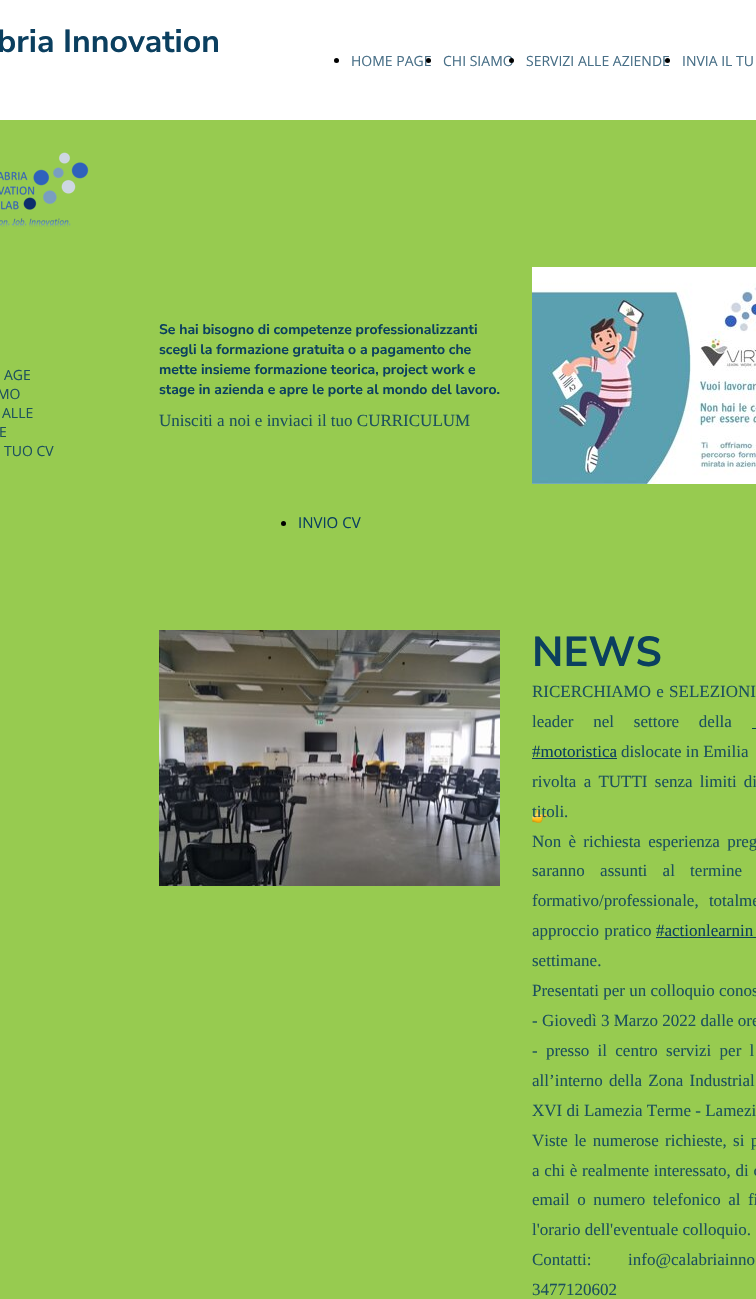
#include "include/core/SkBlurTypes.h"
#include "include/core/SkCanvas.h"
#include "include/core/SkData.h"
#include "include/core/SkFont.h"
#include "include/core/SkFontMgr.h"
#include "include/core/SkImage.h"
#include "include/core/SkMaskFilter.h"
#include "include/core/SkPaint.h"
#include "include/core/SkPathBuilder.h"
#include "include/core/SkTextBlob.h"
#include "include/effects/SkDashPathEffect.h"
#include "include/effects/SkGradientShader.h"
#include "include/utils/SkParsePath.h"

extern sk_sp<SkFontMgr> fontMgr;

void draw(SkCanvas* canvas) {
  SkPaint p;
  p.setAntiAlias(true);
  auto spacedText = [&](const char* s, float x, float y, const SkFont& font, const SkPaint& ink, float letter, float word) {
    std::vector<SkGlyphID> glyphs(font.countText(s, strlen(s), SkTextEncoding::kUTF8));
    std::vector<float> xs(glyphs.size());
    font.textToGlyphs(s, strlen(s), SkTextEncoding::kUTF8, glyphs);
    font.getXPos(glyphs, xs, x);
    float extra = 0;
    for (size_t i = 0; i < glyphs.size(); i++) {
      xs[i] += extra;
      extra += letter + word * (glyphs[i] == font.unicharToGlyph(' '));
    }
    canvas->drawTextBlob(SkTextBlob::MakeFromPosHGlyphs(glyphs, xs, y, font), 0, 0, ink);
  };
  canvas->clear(SK_ColorWHITE);
  p.setColor(SK_ColorBLACK);
  canvas->drawCircle(336.5f, 60.5f, 2.5f, p);
  p.setColor(SkColorSetRGB(151, 203, 80));
  canvas->drawRect(SkRect::MakeLTRB(0, 120, 128, 1299), p);
  canvas->drawRect(SkRect::MakeLTRB(128, 120, 756, 1299), p);
  canvas->drawImageRect(SkImages::DeferredFromEncodedData(SkData::MakeFromFileName("images/1.png")), SkRect::MakeLTRB(0, 152, 89, 227), SkSamplingOptions());
  canvas->drawImageRect(SkImages::DeferredFromEncodedData(SkData::MakeFromFileName("images/2.png")), SkRect::MakeLTRB(532, 267, 756, 484), SkSamplingOptions());
  p.setColor(SK_ColorBLACK);
  canvas->drawCircle(283.5f, 523.5f, 2.5f, p);
  canvas->drawImageRect(SkImages::DeferredFromEncodedData(SkData::MakeFromFileName("images/3.png")), SkRect::MakeLTRB(159, 630, 500, 886), SkSamplingOptions());
  p.setColor(SkColorSetRGB(11, 63, 95));
  canvas->drawRect(SkRect::MakeLTRB(752, 728, 756, 729), p);
  canvas->drawRect(SkRect::MakeLTRB(532, 758, 617, 759), p);
  canvas->drawRect(SkRect::MakeLTRB(656, 937, 756, 938), p);
  canvas->drawImageRect(SkImages::DeferredFromEncodedData(SkData::MakeFromFileName("images/4.png")), SkRect::MakeLTRB(532, 809, 548, 823), SkSamplingOptions());
  SkFont font1(fontMgr->matchFamilyStyle("Nunito Sans", SkFontStyle::Bold()), 32);
  font1.setSubpixel(true);
  canvas->drawString("bria Innovation", -3, 52, font1, p);
  SkFont font2(fontMgr->matchFamilyStyle("Open Sans", SkFontStyle::Normal()), 14);
  font2.setSubpixel(true);
  p.setColor(SkColorSetRGB(72, 111, 135));
  canvas->drawString("HOME PAGE", 351, 66, font2, p);
  p.setColor(SK_ColorBLACK);
  canvas->drawCircle(428.5f, 60.5f, 2.5f, p);
  p.setColor(SkColorSetRGB(72, 111, 135));
  canvas->drawString("CHI SIAMO", 443, 66, font2, p);
  p.setColor(SK_ColorBLACK);
  canvas->drawCircle(511.5f, 60.5f, 2.5f, p);
  p.setColor(SkColorSetRGB(72, 111, 135));
  canvas->drawString("SERVIZI ALLE AZIENDE", 526, 66, font2, p);
  p.setColor(SK_ColorBLACK);
  canvas->drawCircle(667.5f, 60.5f, 2.5f, p);
  p.setColor(SkColorSetRGB(72, 111, 135));
  canvas->drawString("INVIA IL TU", 682, 66, font2, p);
  p.setColor(SkColorSetRGB(29, 81, 93));
  canvas->drawString("AGE", 4, 380, font2, p);
  canvas->drawString("MO", -3, 399, font2, p);
  canvas->drawString("ALLE", 2, 418, font2, p);
  canvas->drawString("E", -1, 437, font2, p);
  canvas->drawString("TUO CV", 4, 456, font2, p);
  SkFont font3(fontMgr->matchFamilyStyle("Nunito Sans", SkFontStyle::Bold()), 14);
  font3.setSubpixel(true);
  p.setColor(SkColorSetRGB(11, 63, 95));
  canvas->drawString("Se hai bisogno di competenze professionalizzanti", 159, 334, font3, p);
  canvas->drawString("scegli la formazione gratuita o a pagamento che", 159, 354, font3, p);
  canvas->drawString("mette insieme formazione teorica, project work e", 159, 374, font3, p);
  canvas->drawString("stage in azienda e apre le porte al mondo del lavoro.", 159, 394, font3, p);
  SkFont font4(fontMgr->matchFamilyStyle("Liberation Serif", SkFontStyle::Normal()), 17);
  font4.setSubpixel(true);
  p.setColor(SkColorSetRGB(29, 81, 93));
  canvas->drawString("Unisciti a noi e inviaci il tuo CURRICULUM", 159, 426, font4, p);
  SkFont font5(fontMgr->matchFamilyStyle("Open Sans", SkFontStyle::Normal()), 15);
  font5.setSubpixel(true);
  p.setColor(SkColorSetRGB(11, 63, 95));
  canvas->drawString("INVIO CV", 298, 528, font5, p);
  SkFont font6(fontMgr->matchFamilyStyle("Nunito Sans", SkFontStyle::Bold()), 42);
  font6.setSubpixel(true);
  canvas->drawString("NEWS", 532, 666, font6, p);
  p.setColor(SkColorSetRGB(29, 81, 93));
  spacedText("RICERCHIAMO e SELEZIONI", 532, 697, font4, p, 0, 1);
  spacedText("leader nel settore della", 532, 727, font4, p, 0, 15.5f);
  p.setColor(SkColorSetRGB(11, 63, 95));
  canvas->drawString("#motoristica", 532, 757, font4, p);
  p.setColor(SkColorSetRGB(29, 81, 93));
  canvas->drawString("dislocate in Emilia", 621, 757, font4, p);
  spacedText("rivolta a TUTTI senza limiti di", 532, 787, font4, p, 0, 3);
  canvas->drawString("titoli.", 532, 817, font4, p);
  spacedText("Non è richiesta esperienza preg", 532, 847, font4, p, 0, 3);
  spacedText("saranno assunti al termine", 532, 876, font4, p, 0, 11);
  spacedText("formativo/professionale, totalme", 532, 906, font4, p, 0, 6);
  spacedText("approccio pratico", 532, 936, font4, p, 0, 1);
  p.setColor(SkColorSetRGB(11, 63, 95));
  canvas->drawString("#actionlearnin", 656, 936, font4, p);
  p.setColor(SkColorSetRGB(29, 81, 93));
  canvas->drawString("settimane.", 532, 966, font4, p);
  canvas->drawString("Presentati per un colloquio conos", 532, 996, font4, p);
  canvas->drawString("- Giovedì 3 Marzo 2022 dalle ore", 532, 1026, font4, p);
  spacedText("- presso il centro servizi per l", 532, 1056, font4, p, 0, 4);
  spacedText("all’interno della Zona Industrial", 532, 1086, font4, p, 0, 2);
  canvas->drawString("XVI di Lamezia Terme - Lamezi", 532, 1116, font4, p);
  spacedText("Viste le numerose richieste, si p", 532, 1146, font4, p, 0, 2);
  spacedText("a chi è realmente interessato, di c", 532, 1176, font4, p, 0, 0.5f);
  spacedText("email o numero telefonico al fi", 532, 1205, font4, p, 0, 3.25f);
  canvas->drawString("l'orario dell'eventuale colloquio.", 532, 1235, font4, p);
  spacedText("Contatti:  info@calabriainno", 532, 1265, font4, p, 0, 14);
  canvas->drawString("3477120602", 532, 1295, font4, p);
}
